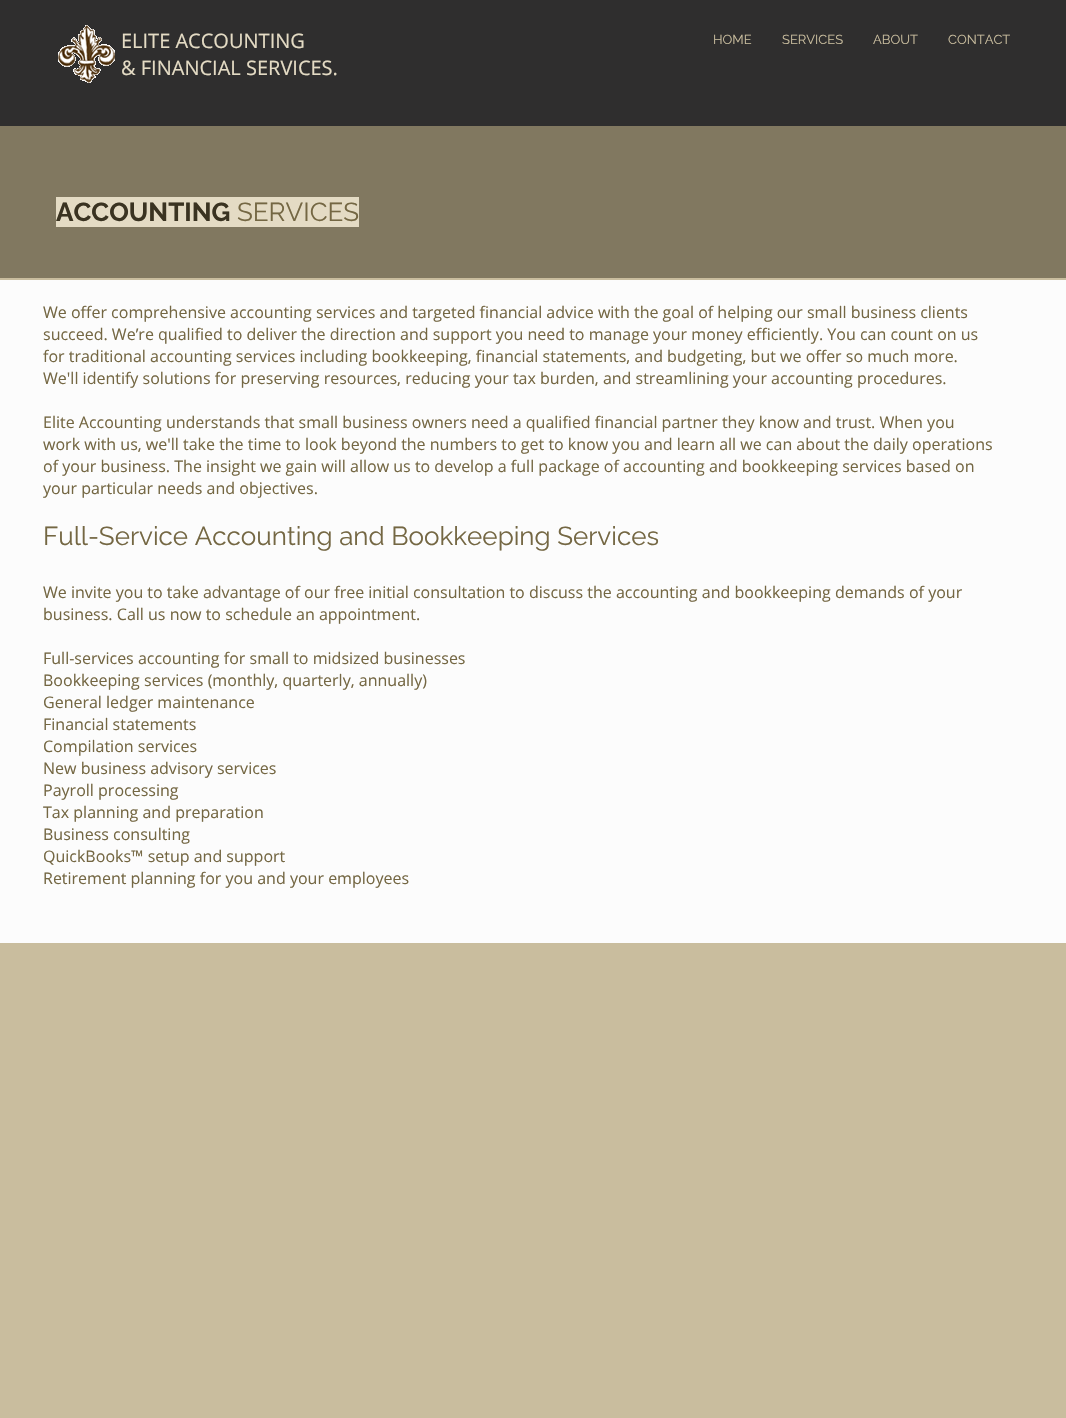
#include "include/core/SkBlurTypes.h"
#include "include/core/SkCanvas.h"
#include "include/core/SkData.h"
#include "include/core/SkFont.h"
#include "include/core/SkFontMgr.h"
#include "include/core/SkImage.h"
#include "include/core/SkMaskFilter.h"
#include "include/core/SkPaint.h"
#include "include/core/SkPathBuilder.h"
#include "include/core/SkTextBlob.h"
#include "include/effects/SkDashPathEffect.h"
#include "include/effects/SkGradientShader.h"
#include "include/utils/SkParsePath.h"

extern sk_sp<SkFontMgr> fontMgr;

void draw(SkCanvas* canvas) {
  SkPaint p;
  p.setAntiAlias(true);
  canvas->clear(SkColorSetRGB(201, 189, 158));
  p.setColor(SkColorSetRGB(47, 46, 46));
  canvas->drawRect(SkRect::MakeLTRB(0, 0, 1066, 126), p);
  canvas->drawImageRect(SkImages::DeferredFromEncodedData(SkData::MakeFromFileName("images/1.png")), SkRect::MakeLTRB(58, 25, 115, 83), SkSamplingOptions());
  p.setColor(SkColorSetRGB(129, 120, 96));
  canvas->drawRect(SkRect::MakeLTRB(0, 126, 1066, 278), p);
  p.setColor(SkColorSetRGB(228, 219, 196));
  canvas->drawRect(SkRect::MakeLTRB(56, 197, 359, 227), p);
  p.setColor(SkColorSetRGB(252, 252, 252));
  canvas->drawRect(SkRect::MakeLTRB(0, 280, 1066, 943), p);
  SkFont font1(fontMgr->matchFamilyStyle("Open Sans", SkFontStyle::Normal()), 20);
  font1.setSubpixel(true);
  p.setColor(SkColorSetRGB(228, 219, 196));
  canvas->drawString("ELITE ACCOUNTING", 121, 48, font1, p);
  canvas->drawString("& FINANCIAL SERVICES.", 121, 75, font1, p);
  SkFont font2(fontMgr->matchFamilyStyle("Raleway", SkFontStyle::Normal()), 13);
  font2.setSubpixel(true);
  p.setColor(SkColorSetRGB(201, 189, 158));
  canvas->drawString("HOME", 713, 44, font2, p);
  canvas->drawString("SERVICES", 782, 44, font2, p);
  canvas->drawString("ABOUT", 873, 44, font2, p);
  canvas->drawString("CONTACT", 948, 44, font2, p);
  SkFont font3(fontMgr->matchFamilyStyle("Raleway", SkFontStyle::Bold()), 26);
  font3.setSubpixel(true);
  p.setColor(SkColorSetRGB(58, 51, 33));
  canvas->drawString("ACCOUNTING", 56, 221, font3, p);
  SkFont font4(fontMgr->matchFamilyStyle("Raleway", SkFontStyle::Normal()), 26);
  font4.setSubpixel(true);
  p.setColor(SkColorSetRGB(116, 103, 67));
  canvas->drawString("SERVICES", 237, 221, font4, p);
  SkFont font5(fontMgr->matchFamilyStyle("Open Sans", SkFontStyle::Normal()), 16);
  font5.setSubpixel(true);
  canvas->drawString("We offer comprehensive accounting services and targeted financial advice with the goal of helping our small business clients", 43, 318, font5, p);
  canvas->drawString("succeed. We’re qualified to deliver the direction and support you need to manage your money efficiently. You can count on us", 43, 340, font5, p);
  canvas->drawString("for traditional accounting services including bookkeeping, financial statements, and budgeting, but we offer so much more.", 43, 362, font5, p);
  canvas->drawString("We'll identify solutions for preserving resources, reducing your tax burden, and streamlining your accounting procedures.", 43, 384, font5, p);
  canvas->drawString("Elite Accounting understands that small business owners need a qualified financial partner they know and trust. When you", 43, 428, font5, p);
  canvas->drawString("work with us, we'll take the time to look beyond the numbers to get to know you and learn all we can about the daily operations", 43, 450, font5, p);
  canvas->drawString("of your business. The insight we gain will allow us to develop a full package of accounting and bookkeeping services based on", 43, 472, font5, p);
  canvas->drawString("your particular needs and objectives.", 43, 494, font5, p);
  canvas->drawString("Full-Service Accounting and Bookkeeping Services", 43, 545, font4, p);
  canvas->drawString("We invite you to take advantage of our free initial consultation to discuss the accounting and bookkeeping demands of your", 43, 598, font5, p);
  canvas->drawString("business. Call us now to schedule an appointment.", 43, 620, font5, p);
  canvas->drawString("Full-services accounting for small to midsized businesses", 43, 664, font5, p);
  canvas->drawString("Bookkeeping services (monthly, quarterly, annually)", 43, 686, font5, p);
  canvas->drawString("General ledger maintenance", 43, 708, font5, p);
  canvas->drawString("Financial statements", 43, 730, font5, p);
  canvas->drawString("Compilation services", 43, 752, font5, p);
  canvas->drawString("New business advisory services", 43, 774, font5, p);
  canvas->drawString("Payroll processing", 43, 796, font5, p);
  canvas->drawString("Tax planning and preparation", 43, 818, font5, p);
  canvas->drawString("Business consulting", 43, 840, font5, p);
  canvas->drawString("QuickBooks™ setup and support", 43, 862, font5, p);
  canvas->drawString("Retirement planning for you and your employees", 43, 884, font5, p);
}
